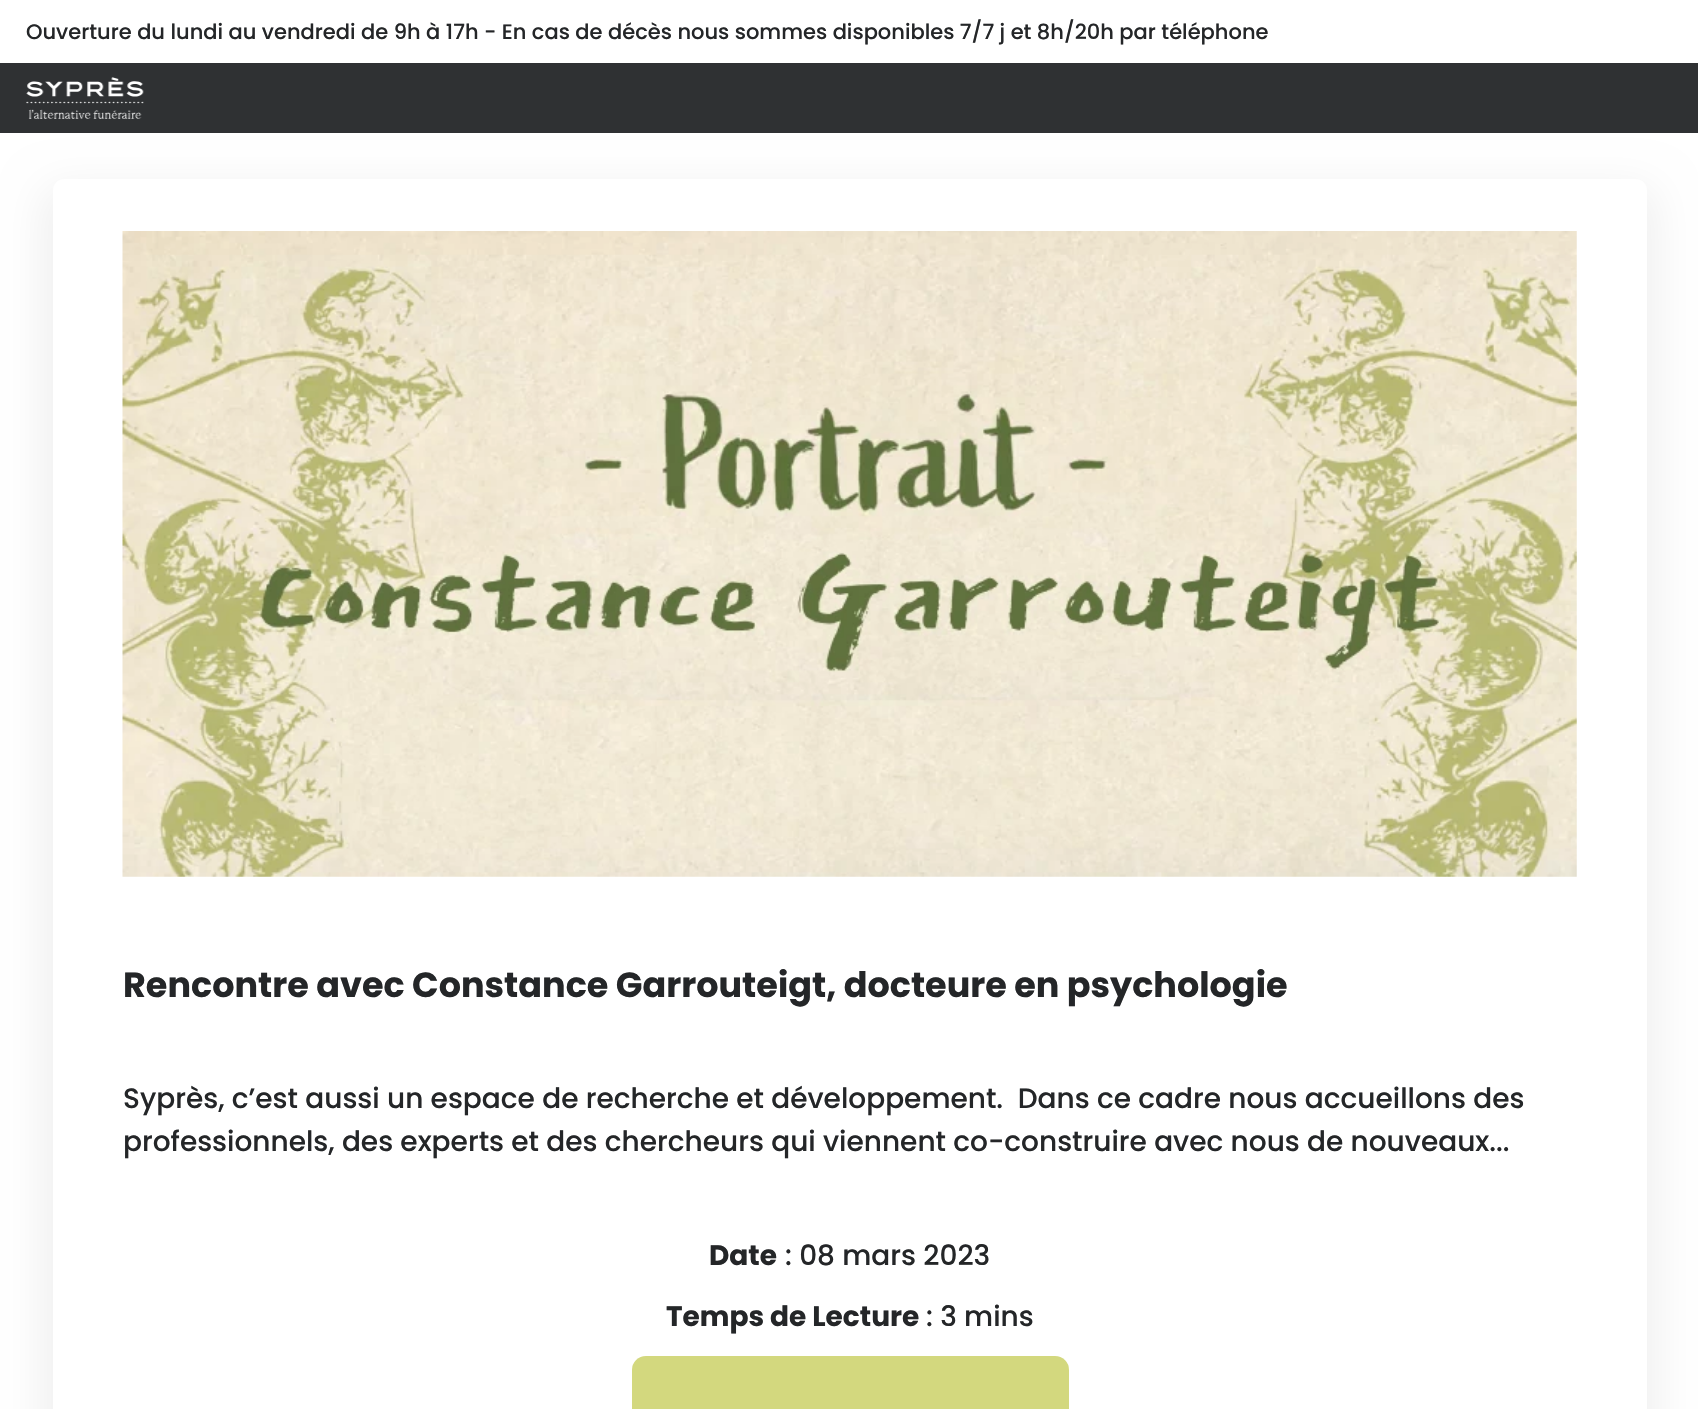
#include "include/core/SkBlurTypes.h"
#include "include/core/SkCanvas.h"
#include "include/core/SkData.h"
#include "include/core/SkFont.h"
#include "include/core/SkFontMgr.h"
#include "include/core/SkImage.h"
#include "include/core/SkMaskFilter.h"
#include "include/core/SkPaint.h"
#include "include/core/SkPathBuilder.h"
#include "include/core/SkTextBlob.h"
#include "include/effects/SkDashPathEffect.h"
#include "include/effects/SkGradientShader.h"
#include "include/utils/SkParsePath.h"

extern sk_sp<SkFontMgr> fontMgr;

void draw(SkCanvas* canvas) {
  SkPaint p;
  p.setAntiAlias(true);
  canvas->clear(SK_ColorWHITE);
  p.setColor(SkColorSetARGB(15, 0, 0, 0));
  p.setMaskFilter(SkMaskFilter::MakeBlur(kNormal_SkBlurStyle, 21));
  canvas->drawRoundRect(SkRect::MakeLTRB(42, 186, 1657, 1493), 21, 21, p);
  p.setMaskFilter(nullptr);
  p.setColor(SkColorSetRGB(47, 49, 51));
  canvas->drawRect(SkRect::MakeLTRB(0, 63, 1698, 133), p);
  canvas->drawImageRect(SkImages::DeferredFromEncodedData(SkData::MakeFromFileName("images/1.png")), SkRect::MakeLTRB(26, 77, 144, 119), SkSamplingOptions());
  p.setColor(SK_ColorWHITE);
  canvas->drawRoundRect(SkRect::MakeLTRB(53, 179, 1647, 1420), 11, 11, p);
  canvas->drawImageRect(SkImages::DeferredFromEncodedData(SkData::MakeFromFileName("images/2.png")), SkRect::MakeLTRB(122, 231, 1577, 877), SkSamplingOptions());
  p.setColor(SkColorSetRGB(211, 216, 126));
  canvas->drawRoundRect(SkRect::MakeLTRB(632, 1356, 1069, 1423), 14, 14, p);
  SkFont font1(fontMgr->matchFamilyStyle("Poppins", SkFontStyle(500, SkFontStyle::kNormal_Width, SkFontStyle::kUpright_Slant)), 21);
  font1.setSubpixel(true);
  p.setColor(SkColorSetRGB(36, 38, 40));
  canvas->drawString("Ouverture du lundi au vendredi de 9h à 17h - En cas de décès nous sommes disponibles 7/7 j et 8h/20h par téléphone", 26, 39, font1, p);
  SkFont font2(fontMgr->matchFamilyStyle("Poppins", SkFontStyle::Bold()), 35);
  font2.setSubpixel(true);
  canvas->drawString("Rencontre avec Constance Garrouteigt, docteure en psychologie", 123, 997, font2, p);
  SkFont font3(fontMgr->matchFamilyStyle("Poppins", SkFontStyle(500, SkFontStyle::kNormal_Width, SkFontStyle::kUpright_Slant)), 28);
  font3.setSubpixel(true);
  canvas->drawString("Syprès, c’est aussi un espace de recherche et développement.  Dans ce cadre nous accueillons des", 123, 1108, font3, p);
  canvas->drawString("professionnels, des experts et des chercheurs qui viennent co-construire avec nous de nouveaux...", 123, 1151, font3, p);
  SkFont font4(fontMgr->matchFamilyStyle("Poppins", SkFontStyle::Bold()), 28);
  font4.setSubpixel(true);
  canvas->drawString("Date", 709, 1265, font4, p);
  canvas->drawString(": 08 mars 2023", 785, 1265, font3, p);
  canvas->drawString("Temps de Lecture", 666, 1326, font4, p);
  canvas->drawString(": 3 mins", 926, 1326, font3, p);
}
